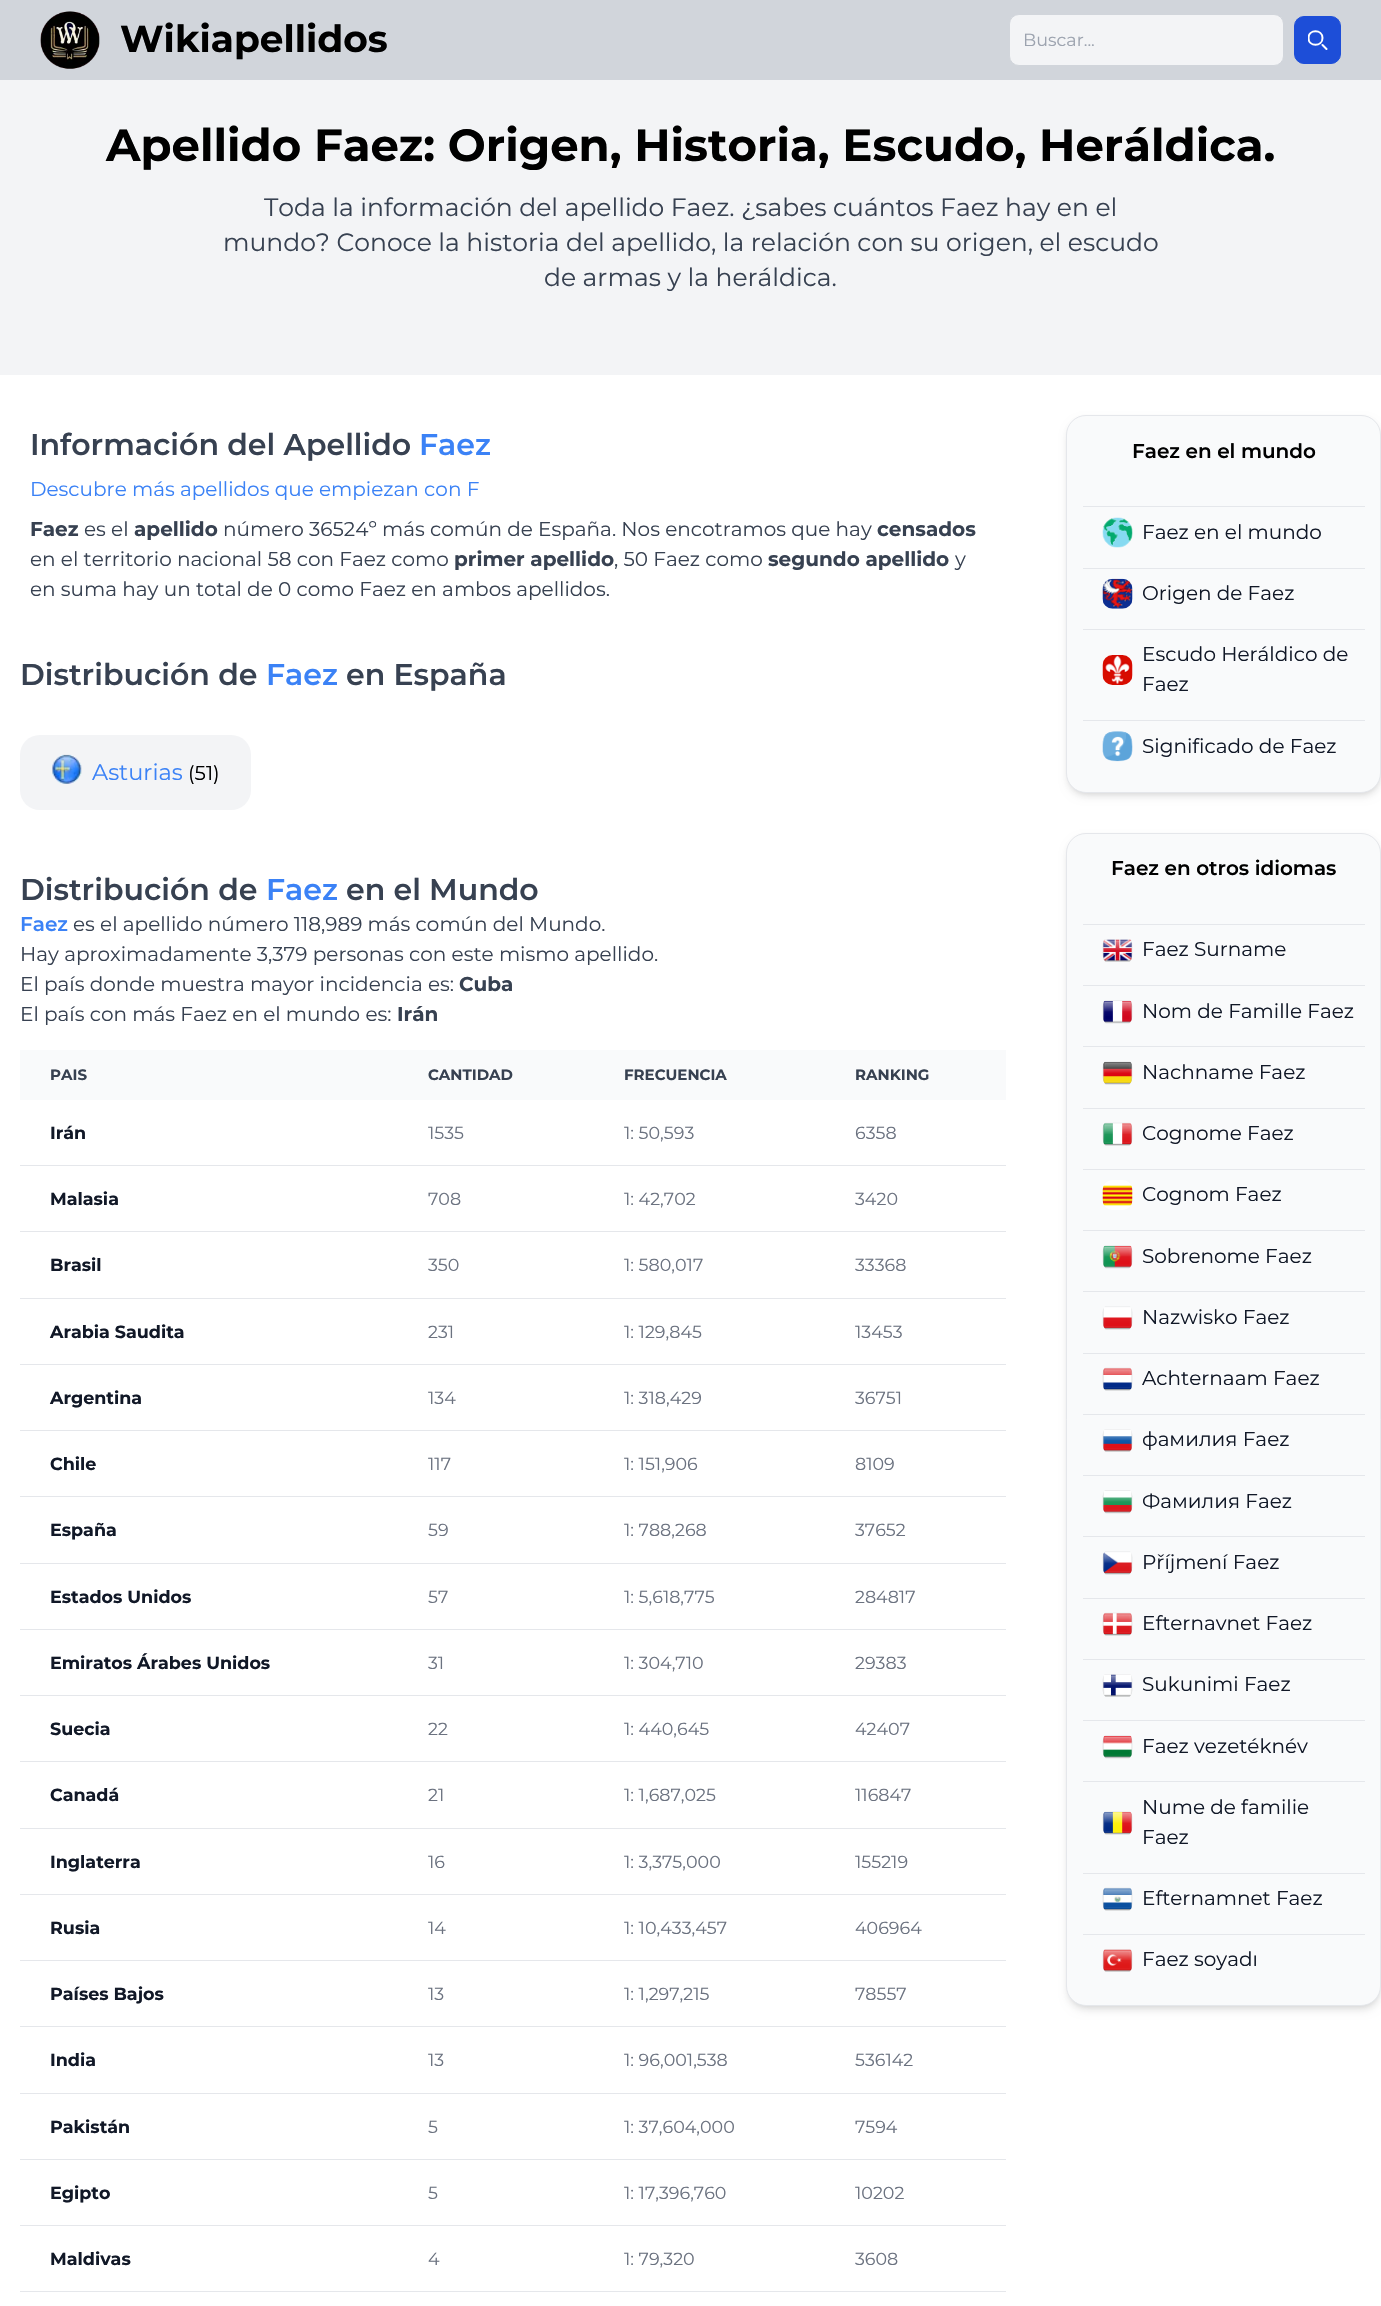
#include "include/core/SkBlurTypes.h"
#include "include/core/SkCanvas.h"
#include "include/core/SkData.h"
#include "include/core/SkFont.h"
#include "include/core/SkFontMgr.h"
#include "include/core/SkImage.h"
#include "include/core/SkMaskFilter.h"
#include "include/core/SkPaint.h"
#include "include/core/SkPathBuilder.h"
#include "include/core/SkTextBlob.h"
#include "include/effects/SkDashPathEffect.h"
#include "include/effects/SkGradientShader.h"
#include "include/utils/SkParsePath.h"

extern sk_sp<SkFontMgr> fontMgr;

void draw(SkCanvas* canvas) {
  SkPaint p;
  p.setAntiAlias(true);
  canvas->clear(SK_ColorWHITE);
  p.setColor(SkColorSetRGB(209, 213, 219));
  canvas->drawRect(SkRect::MakeLTRB(0, 0, 1381, 80), p);
  canvas->drawImageRect(SkImages::DeferredFromEncodedData(SkData::MakeFromFileName("images/1.png")), SkRect::MakeLTRB(40, 11, 100, 69), SkSamplingOptions());
  p.setColor(SkColorSetRGB(243, 244, 246));
  canvas->drawRoundRect(SkRect::MakeLTRB(1009.5f, 14.5f, 1283.5f, 65.5f), 9.5f, 9.5f, p);
  p.setStyle(SkPaint::kStroke_Style);
  p.setStrokeWidth(1);
  p.setColor(SkColorSetRGB(209, 213, 219));
  canvas->drawRoundRect(SkRect::MakeLTRB(1009.5f, 14.5f, 1283.5f, 65.5f), 9.5f, 9.5f, p);
  p.setStyle(SkPaint::kFill_Style);
  p.setColor(SkColorSetRGB(29, 78, 216));
  canvas->drawRoundRect(SkRect::MakeLTRB(1294.5f, 16.5f, 1340.5f, 63.5f), 9.5f, 9.5f, p);
  p.setStyle(SkPaint::kStroke_Style);
  canvas->drawRoundRect(SkRect::MakeLTRB(1294.5f, 16.5f, 1340.5f, 63.5f), 9.5f, 9.5f, p);
  canvas->save();
  canvas->clipRect(SkRect::MakeLTRB(1308, 30, 1328, 50));
  p.setStrokeWidth(2);
  p.setStrokeCap(SkPaint::kRound_Cap);
  p.setStrokeJoin(SkPaint::kRound_Join);
  p.setColor(SK_ColorWHITE);
  canvas->drawPath(SkPathBuilder().moveTo(1326.5f, 49).lineTo(1322.5f, 45).moveTo(1322.5f, 38).cubicTo(1322.5f, 47, 1308.5f, 47, 1308.5f, 38).cubicTo(1308.5f, 29, 1322.5f, 29, 1322.5f, 38).close().detach(), p);
  canvas->restore();
  p.setStyle(SkPaint::kFill_Style);
  p.setColor(SkColorSetRGB(243, 244, 246));
  canvas->drawRect(SkRect::MakeLTRB(0, 80, 1381, 375), p);
  canvas->drawRoundRect(SkRect::MakeLTRB(20, 735, 251, 810), 20, 20, p);
  canvas->drawImageRect(SkImages::DeferredFromEncodedData(SkData::MakeFromFileName("images/2.png")), SkRect::MakeLTRB(52, 754, 82, 784), SkSamplingOptions());
  p.setColor(SkColorSetRGB(249, 250, 251));
  canvas->drawRect(SkRect::MakeLTRB(20, 1050, 1006, 1100), p);
  p.setColor(SkColorSetRGB(229, 231, 235));
  canvas->drawRect(SkRect::MakeLTRB(20, 1165, 1006, 1166), p);
  canvas->drawRect(SkRect::MakeLTRB(20, 1231, 1006, 1232), p);
  canvas->drawRect(SkRect::MakeLTRB(20, 1298, 1006, 1299), p);
  canvas->drawRect(SkRect::MakeLTRB(20, 1364, 1006, 1365), p);
  canvas->drawRect(SkRect::MakeLTRB(20, 1430, 1006, 1431), p);
  canvas->drawRect(SkRect::MakeLTRB(20, 1496, 1006, 1497), p);
  canvas->drawRect(SkRect::MakeLTRB(20, 1563, 1006, 1564), p);
  canvas->drawRect(SkRect::MakeLTRB(20, 1629, 1006, 1630), p);
  canvas->drawRect(SkRect::MakeLTRB(20, 1695, 1006, 1696), p);
  canvas->drawRect(SkRect::MakeLTRB(20, 1761, 1006, 1762), p);
  canvas->drawRect(SkRect::MakeLTRB(20, 1828, 1006, 1829), p);
  canvas->drawRect(SkRect::MakeLTRB(20, 1894, 1006, 1895), p);
  canvas->drawRect(SkRect::MakeLTRB(20, 1960, 1006, 1961), p);
  canvas->drawRect(SkRect::MakeLTRB(20, 2026, 1006, 2027), p);
  canvas->drawRect(SkRect::MakeLTRB(20, 2093, 1006, 2094), p);
  canvas->drawRect(SkRect::MakeLTRB(20, 2159, 1006, 2160), p);
  canvas->drawRect(SkRect::MakeLTRB(20, 2225, 1006, 2226), p);
  canvas->drawRect(SkRect::MakeLTRB(20, 2291, 1006, 2292), p);
  p.setColor(SkColorSetARGB(26, 0, 0, 0));
  p.setMaskFilter(SkMaskFilter::MakeBlur(kNormal_SkBlurStyle, 2.5f));
  canvas->drawRoundRect(SkRect::MakeLTRB(1069, 420, 1379, 793), 18, 18, p);
  p.setMaskFilter(nullptr);
  p.setMaskFilter(SkMaskFilter::MakeBlur(kNormal_SkBlurStyle, 4));
  canvas->drawRoundRect(SkRect::MakeLTRB(1068, 421, 1380, 796), 19, 19, p);
  p.setMaskFilter(nullptr);
  p.setColor(SkColorSetRGB(249, 250, 251));
  canvas->drawRoundRect(SkRect::MakeLTRB(1066.5f, 415.5f, 1380.5f, 792.5f), 19.5f, 19.5f, p);
  p.setStyle(SkPaint::kStroke_Style);
  p.setStrokeWidth(1);
  p.setStrokeCap(SkPaint::kButt_Cap);
  p.setStrokeJoin(SkPaint::kMiter_Join);
  p.setColor(SkColorSetRGB(229, 231, 235));
  canvas->drawRoundRect(SkRect::MakeLTRB(1066.5f, 415.5f, 1380.5f, 792.5f), 19.5f, 19.5f, p);
  p.setStyle(SkPaint::kFill_Style);
  canvas->drawRect(SkRect::MakeLTRB(1083, 506, 1365, 507), p);
  canvas->drawImageRect(SkImages::DeferredFromEncodedData(SkData::MakeFromFileName("images/3.png")), SkRect::MakeLTRB(1102, 517, 1133, 548), SkSamplingOptions());
  canvas->drawRect(SkRect::MakeLTRB(1083, 568, 1365, 569), p);
  canvas->drawImageRect(SkImages::DeferredFromEncodedData(SkData::MakeFromFileName("images/4.png")), SkRect::MakeLTRB(1102, 578, 1133, 609), SkSamplingOptions());
  canvas->drawRect(SkRect::MakeLTRB(1083, 629, 1365, 630), p);
  canvas->drawImageRect(SkImages::DeferredFromEncodedData(SkData::MakeFromFileName("images/5.png")), SkRect::MakeLTRB(1102, 655, 1133, 685), SkSamplingOptions());
  canvas->drawRect(SkRect::MakeLTRB(1083, 720, 1365, 721), p);
  canvas->drawImageRect(SkImages::DeferredFromEncodedData(SkData::MakeFromFileName("images/6.png")), SkRect::MakeLTRB(1102, 731, 1133, 762), SkSamplingOptions());
  p.setColor(SkColorSetARGB(26, 0, 0, 0));
  p.setMaskFilter(SkMaskFilter::MakeBlur(kNormal_SkBlurStyle, 2.5f));
  canvas->drawRoundRect(SkRect::MakeLTRB(1069, 838, 1379, 2006), 18, 18, p);
  p.setMaskFilter(nullptr);
  p.setMaskFilter(SkMaskFilter::MakeBlur(kNormal_SkBlurStyle, 4));
  canvas->drawRoundRect(SkRect::MakeLTRB(1068, 839, 1380, 2010), 19, 19, p);
  p.setMaskFilter(nullptr);
  p.setColor(SkColorSetRGB(249, 250, 251));
  canvas->drawRoundRect(SkRect::MakeLTRB(1066.5f, 833.5f, 1380.5f, 2005.5f), 19.5f, 19.5f, p);
  p.setStyle(SkPaint::kStroke_Style);
  p.setColor(SkColorSetRGB(229, 231, 235));
  canvas->drawRoundRect(SkRect::MakeLTRB(1066.5f, 833.5f, 1380.5f, 2005.5f), 19.5f, 19.5f, p);
  p.setStyle(SkPaint::kFill_Style);
  canvas->drawRect(SkRect::MakeLTRB(1083, 924, 1365, 925), p);
  canvas->drawImageRect(SkImages::DeferredFromEncodedData(SkData::MakeFromFileName("images/7.png")), SkRect::MakeLTRB(1102, 939, 1133, 962), SkSamplingOptions());
  canvas->drawRect(SkRect::MakeLTRB(1083, 985, 1365, 986), p);
  canvas->drawImageRect(SkImages::DeferredFromEncodedData(SkData::MakeFromFileName("images/8.png")), SkRect::MakeLTRB(1102, 1000, 1133, 1024), SkSamplingOptions());
  canvas->drawRect(SkRect::MakeLTRB(1083, 1046, 1365, 1047), p);
  canvas->drawImageRect(SkImages::DeferredFromEncodedData(SkData::MakeFromFileName("images/9.png")), SkRect::MakeLTRB(1102, 1061, 1133, 1085), SkSamplingOptions());
  canvas->drawRect(SkRect::MakeLTRB(1083, 1108, 1365, 1109), p);
  canvas->drawImageRect(SkImages::DeferredFromEncodedData(SkData::MakeFromFileName("images/10.png")), SkRect::MakeLTRB(1102, 1122, 1133, 1146), SkSamplingOptions());
  canvas->drawRect(SkRect::MakeLTRB(1083, 1169, 1365, 1170), p);
  canvas->drawImageRect(SkImages::DeferredFromEncodedData(SkData::MakeFromFileName("images/11.png")), SkRect::MakeLTRB(1102, 1180, 1133, 1210), SkSamplingOptions());
  canvas->drawRect(SkRect::MakeLTRB(1083, 1230, 1365, 1231), p);
  canvas->drawImageRect(SkImages::DeferredFromEncodedData(SkData::MakeFromFileName("images/12.png")), SkRect::MakeLTRB(1102, 1245, 1133, 1269), SkSamplingOptions());
  canvas->drawRect(SkRect::MakeLTRB(1083, 1291, 1365, 1292), p);
  canvas->drawImageRect(SkImages::DeferredFromEncodedData(SkData::MakeFromFileName("images/13.png")), SkRect::MakeLTRB(1102, 1306, 1133, 1330), SkSamplingOptions());
  canvas->drawRect(SkRect::MakeLTRB(1083, 1353, 1365, 1354), p);
  canvas->drawImageRect(SkImages::DeferredFromEncodedData(SkData::MakeFromFileName("images/14.png")), SkRect::MakeLTRB(1102, 1367, 1133, 1391), SkSamplingOptions());
  canvas->drawRect(SkRect::MakeLTRB(1083, 1414, 1365, 1415), p);
  canvas->drawImageRect(SkImages::DeferredFromEncodedData(SkData::MakeFromFileName("images/15.png")), SkRect::MakeLTRB(1102, 1429, 1133, 1452), SkSamplingOptions());
  canvas->drawRect(SkRect::MakeLTRB(1083, 1475, 1365, 1476), p);
  canvas->drawImageRect(SkImages::DeferredFromEncodedData(SkData::MakeFromFileName("images/16.png")), SkRect::MakeLTRB(1102, 1490, 1133, 1514), SkSamplingOptions());
  canvas->drawRect(SkRect::MakeLTRB(1083, 1536, 1365, 1537), p);
  canvas->drawImageRect(SkImages::DeferredFromEncodedData(SkData::MakeFromFileName("images/17.png")), SkRect::MakeLTRB(1102, 1551, 1133, 1575), SkSamplingOptions());
  canvas->drawRect(SkRect::MakeLTRB(1083, 1598, 1365, 1599), p);
  canvas->drawImageRect(SkImages::DeferredFromEncodedData(SkData::MakeFromFileName("images/18.png")), SkRect::MakeLTRB(1102, 1612, 1133, 1636), SkSamplingOptions());
  canvas->drawRect(SkRect::MakeLTRB(1083, 1659, 1365, 1660), p);
  canvas->drawImageRect(SkImages::DeferredFromEncodedData(SkData::MakeFromFileName("images/19.png")), SkRect::MakeLTRB(1102, 1674, 1133, 1697), SkSamplingOptions());
  canvas->drawRect(SkRect::MakeLTRB(1083, 1720, 1365, 1721), p);
  canvas->drawImageRect(SkImages::DeferredFromEncodedData(SkData::MakeFromFileName("images/20.png")), SkRect::MakeLTRB(1102, 1735, 1133, 1759), SkSamplingOptions());
  canvas->drawRect(SkRect::MakeLTRB(1083, 1781, 1365, 1782), p);
  canvas->drawImageRect(SkImages::DeferredFromEncodedData(SkData::MakeFromFileName("images/21.png")), SkRect::MakeLTRB(1102, 1811, 1133, 1835), SkSamplingOptions());
  canvas->drawRect(SkRect::MakeLTRB(1083, 1873, 1365, 1874), p);
  canvas->drawImageRect(SkImages::DeferredFromEncodedData(SkData::MakeFromFileName("images/22.png")), SkRect::MakeLTRB(1102, 1887, 1133, 1911), SkSamplingOptions());
  canvas->drawRect(SkRect::MakeLTRB(1083, 1934, 1365, 1935), p);
  canvas->drawImageRect(SkImages::DeferredFromEncodedData(SkData::MakeFromFileName("images/23.png")), SkRect::MakeLTRB(1102, 1949, 1133, 1972), SkSamplingOptions());
  SkFont font1(fontMgr->matchFamilyStyle("Montserrat", SkFontStyle::Bold()), 37.5f);
  font1.setSubpixel(true);
  p.setColor(SK_ColorBLACK);
  canvas->drawString("Wikiapellidos", 120, 52, font1, p);
  SkFont font2(fontMgr->matchFamilyStyle("Montserrat", SkFontStyle::Normal()), 17.5f);
  font2.setSubpixel(true);
  p.setColor(SkColorSetRGB(156, 163, 175));
  canvas->drawString("Buscar...", 1023, 46, font2, p);
  SkFont font3(fontMgr->matchFamilyStyle("Montserrat", SkFontStyle::Bold()), 45);
  font3.setSubpixel(true);
  p.setColor(SK_ColorBLACK);
  canvas->drawString("Apellido Faez: Origen, Historia, Escudo, Heráldica.", 106, 161, font3, p);
  SkFont font4(fontMgr->matchFamilyStyle("Montserrat", SkFontStyle::Normal()), 25);
  font4.setSubpixel(true);
  p.setColor(SkColorSetRGB(55, 65, 81));
  canvas->drawString("Toda la información del apellido Faez. ¿sabes cuántos Faez hay en el", 264, 216, font4, p);
  canvas->drawString("mundo? Conoce la historia del apellido, la relación con su origen, el escudo", 223, 251, font4, p);
  canvas->drawString("de armas y la heráldica.", 544, 286, font4, p);
  SkFont font5(fontMgr->matchFamilyStyle("Montserrat", SkFontStyle(600, SkFontStyle::kNormal_Width, SkFontStyle::kUpright_Slant)), 30);
  font5.setSubpixel(true);
  canvas->drawString("Información del Apellido", 30, 455, font5, p);
  p.setColor(SkColorSetRGB(59, 130, 246));
  canvas->drawString("Faez", 419, 455, font5, p);
  SkFont font6(fontMgr->matchFamilyStyle("Montserrat", SkFontStyle::Normal()), 20);
  font6.setSubpixel(true);
  canvas->drawString("Descubre más apellidos que empiezan con F", 30, 496, font6, p);
  SkFont font7(fontMgr->matchFamilyStyle("Montserrat", SkFontStyle::Bold()), 20);
  font7.setSubpixel(true);
  p.setColor(SkColorSetRGB(55, 65, 81));
  canvas->drawString("Faez", 30, 536, font7, p);
  canvas->drawString("es el", 84, 536, font6, p);
  canvas->drawString("apellido", 134, 536, font7, p);
  canvas->drawString("número 36524º más común de España. Nos encotramos que hay", 223, 536, font6, p);
  canvas->drawString("censados", 877, 536, font7, p);
  canvas->drawString("en el territorio nacional 58 con Faez como", 30, 566, font6, p);
  canvas->drawString("primer apellido", 454, 566, font7, p);
  canvas->drawString(", 50 Faez como", 614, 566, font6, p);
  canvas->drawString("segundo apellido", 768, 566, font7, p);
  canvas->drawString("y", 955, 566, font6, p);
  canvas->drawString("en suma hay un total de 0 como Faez en ambos apellidos.", 30, 596, font6, p);
  canvas->drawString("Distribución de", 20, 685, font5, p);
  p.setColor(SkColorSetRGB(59, 130, 246));
  canvas->drawString("Faez", 266, 685, font5, p);
  p.setColor(SkColorSetRGB(55, 65, 81));
  canvas->drawString("en España", 346, 685, font5, p);
  SkFont font8(fontMgr->matchFamilyStyle("Montserrat", SkFontStyle::Normal()), 22.5f);
  font8.setSubpixel(true);
  p.setColor(SkColorSetRGB(59, 130, 246));
  canvas->drawString("Asturias", 92, 780, font8, p);
  p.setColor(SK_ColorBLACK);
  canvas->drawString("(51)", 188, 780, font6, p);
  p.setColor(SkColorSetRGB(55, 65, 81));
  canvas->drawString("Distribución de", 20, 900, font5, p);
  p.setColor(SkColorSetRGB(59, 130, 246));
  canvas->drawString("Faez", 266, 900, font5, p);
  p.setColor(SkColorSetRGB(55, 65, 81));
  canvas->drawString("en el Mundo", 346, 900, font5, p);
  SkFont font9(fontMgr->matchFamilyStyle("Montserrat", SkFontStyle(600, SkFontStyle::kNormal_Width, SkFontStyle::kUpright_Slant)), 20);
  font9.setSubpixel(true);
  p.setColor(SkColorSetRGB(59, 130, 246));
  canvas->drawString("Faez", 20, 931, font9, p);
  p.setColor(SkColorSetRGB(55, 65, 81));
  canvas->drawString("es el apellido número 118,989 más común del Mundo.", 73, 931, font6, p);
  canvas->drawString("Hay aproximadamente 3,379 personas con este mismo apellido.", 20, 961, font6, p);
  canvas->drawString("El país donde muestra mayor incidencia es:", 20, 991, font6, p);
  canvas->drawString("Cuba", 459, 991, font7, p);
  canvas->drawString("El país con más Faez en el mundo es:", 20, 1021, font6, p);
  canvas->drawString("Irán", 397, 1021, font7, p);
  SkFont font10(fontMgr->matchFamilyStyle("Montserrat", SkFontStyle::Bold()), 15);
  font10.setSubpixel(true);
  canvas->drawString("PAIS", 50, 1080, font10, p);
  canvas->drawString("CANTIDAD", 428, 1080, font10, p);
  canvas->drawString("FRECUENCIA", 624, 1080, font10, p);
  canvas->drawString("RANKING", 855, 1080, font10, p);
  SkFont font11(fontMgr->matchFamilyStyle("Montserrat", SkFontStyle::Bold()), 17.5f);
  font11.setSubpixel(true);
  p.setColor(SkColorSetRGB(17, 24, 39));
  canvas->drawString("Irán", 50, 1139, font11, p);
  p.setColor(SkColorSetRGB(107, 114, 128));
  canvas->drawString("1535", 428, 1139, font2, p);
  canvas->drawString("1: 50,593", 624, 1139, font2, p);
  canvas->drawString("6358", 855, 1139, font2, p);
  p.setColor(SkColorSetRGB(17, 24, 39));
  canvas->drawString("Malasia", 50, 1205, font11, p);
  p.setColor(SkColorSetRGB(107, 114, 128));
  canvas->drawString("708", 428, 1205, font2, p);
  canvas->drawString("1: 42,702", 624, 1205, font2, p);
  canvas->drawString("3420", 855, 1205, font2, p);
  p.setColor(SkColorSetRGB(17, 24, 39));
  canvas->drawString("Brasil", 50, 1271, font11, p);
  p.setColor(SkColorSetRGB(107, 114, 128));
  canvas->drawString("350", 428, 1271, font2, p);
  canvas->drawString("1: 580,017", 624, 1271, font2, p);
  canvas->drawString("33368", 855, 1271, font2, p);
  p.setColor(SkColorSetRGB(17, 24, 39));
  canvas->drawString("Arabia Saudita", 50, 1338, font11, p);
  p.setColor(SkColorSetRGB(107, 114, 128));
  canvas->drawString("231", 428, 1338, font2, p);
  canvas->drawString("1: 129,845", 624, 1338, font2, p);
  canvas->drawString("13453", 855, 1338, font2, p);
  p.setColor(SkColorSetRGB(17, 24, 39));
  canvas->drawString("Argentina", 50, 1404, font11, p);
  p.setColor(SkColorSetRGB(107, 114, 128));
  canvas->drawString("134", 428, 1404, font2, p);
  canvas->drawString("1: 318,429", 624, 1404, font2, p);
  canvas->drawString("36751", 855, 1404, font2, p);
  p.setColor(SkColorSetRGB(17, 24, 39));
  canvas->drawString("Chile", 50, 1470, font11, p);
  p.setColor(SkColorSetRGB(107, 114, 128));
  canvas->drawString("117", 428, 1470, font2, p);
  canvas->drawString("1: 151,906", 624, 1470, font2, p);
  canvas->drawString("8109", 855, 1470, font2, p);
  p.setColor(SkColorSetRGB(17, 24, 39));
  canvas->drawString("España", 50, 1536, font11, p);
  p.setColor(SkColorSetRGB(107, 114, 128));
  canvas->drawString("59", 428, 1536, font2, p);
  canvas->drawString("1: 788,268", 624, 1536, font2, p);
  canvas->drawString("37652", 855, 1536, font2, p);
  p.setColor(SkColorSetRGB(17, 24, 39));
  canvas->drawString("Estados Unidos", 50, 1603, font11, p);
  p.setColor(SkColorSetRGB(107, 114, 128));
  canvas->drawString("57", 428, 1603, font2, p);
  canvas->drawString("1: 5,618,775", 624, 1603, font2, p);
  canvas->drawString("284817", 855, 1603, font2, p);
  p.setColor(SkColorSetRGB(17, 24, 39));
  canvas->drawString("Emiratos Árabes Unidos", 50, 1669, font11, p);
  p.setColor(SkColorSetRGB(107, 114, 128));
  canvas->drawString("31", 428, 1669, font2, p);
  canvas->drawString("1: 304,710", 624, 1669, font2, p);
  canvas->drawString("29383", 855, 1669, font2, p);
  p.setColor(SkColorSetRGB(17, 24, 39));
  canvas->drawString("Suecia", 50, 1735, font11, p);
  p.setColor(SkColorSetRGB(107, 114, 128));
  canvas->drawString("22", 428, 1735, font2, p);
  canvas->drawString("1: 440,645", 624, 1735, font2, p);
  canvas->drawString("42407", 855, 1735, font2, p);
  p.setColor(SkColorSetRGB(17, 24, 39));
  canvas->drawString("Canadá", 50, 1801, font11, p);
  p.setColor(SkColorSetRGB(107, 114, 128));
  canvas->drawString("21", 428, 1801, font2, p);
  canvas->drawString("1: 1,687,025", 624, 1801, font2, p);
  canvas->drawString("116847", 855, 1801, font2, p);
  p.setColor(SkColorSetRGB(17, 24, 39));
  canvas->drawString("Inglaterra", 50, 1868, font11, p);
  p.setColor(SkColorSetRGB(107, 114, 128));
  canvas->drawString("16", 428, 1868, font2, p);
  canvas->drawString("1: 3,375,000", 624, 1868, font2, p);
  canvas->drawString("155219", 855, 1868, font2, p);
  p.setColor(SkColorSetRGB(17, 24, 39));
  canvas->drawString("Rusia", 50, 1934, font11, p);
  p.setColor(SkColorSetRGB(107, 114, 128));
  canvas->drawString("14", 428, 1934, font2, p);
  canvas->drawString("1: 10,433,457", 624, 1934, font2, p);
  canvas->drawString("406964", 855, 1934, font2, p);
  p.setColor(SkColorSetRGB(17, 24, 39));
  canvas->drawString("Países Bajos", 50, 2000, font11, p);
  p.setColor(SkColorSetRGB(107, 114, 128));
  canvas->drawString("13", 428, 2000, font2, p);
  canvas->drawString("1: 1,297,215", 624, 2000, font2, p);
  canvas->drawString("78557", 855, 2000, font2, p);
  p.setColor(SkColorSetRGB(17, 24, 39));
  canvas->drawString("India", 50, 2066, font11, p);
  p.setColor(SkColorSetRGB(107, 114, 128));
  canvas->drawString("13", 428, 2066, font2, p);
  canvas->drawString("1: 96,001,538", 624, 2066, font2, p);
  canvas->drawString("536142", 855, 2066, font2, p);
  p.setColor(SkColorSetRGB(17, 24, 39));
  canvas->drawString("Pakistán", 50, 2133, font11, p);
  p.setColor(SkColorSetRGB(107, 114, 128));
  canvas->drawString("5", 428, 2133, font2, p);
  canvas->drawString("1: 37,604,000", 624, 2133, font2, p);
  canvas->drawString("7594", 855, 2133, font2, p);
  p.setColor(SkColorSetRGB(17, 24, 39));
  canvas->drawString("Egipto", 50, 2199, font11, p);
  p.setColor(SkColorSetRGB(107, 114, 128));
  canvas->drawString("5", 428, 2199, font2, p);
  canvas->drawString("1: 17,396,760", 624, 2199, font2, p);
  canvas->drawString("10202", 855, 2199, font2, p);
  p.setColor(SkColorSetRGB(17, 24, 39));
  canvas->drawString("Maldivas", 50, 2265, font11, p);
  p.setColor(SkColorSetRGB(107, 114, 128));
  canvas->drawString("4", 428, 2265, font2, p);
  canvas->drawString("1: 79,320", 624, 2265, font2, p);
  canvas->drawString("3608", 855, 2265, font2, p);
  p.setColor(SK_ColorBLACK);
  canvas->drawString("Faez en el mundo", 1132, 458, font9, p);
  p.setColor(SkColorSetRGB(17, 24, 39));
  canvas->drawString("Faez en el mundo", 1142, 539, font6, p);
  canvas->drawString("Origen de Faez", 1142, 600, font6, p);
  canvas->drawString("Escudo Heráldico de", 1142, 661, font6, p);
  canvas->drawString("Faez", 1142, 691, font6, p);
  canvas->drawString("Significado de Faez", 1142, 753, font6, p);
  p.setColor(SK_ColorBLACK);
  canvas->drawString("Faez en otros idiomas", 1111, 875, font9, p);
  p.setColor(SkColorSetRGB(17, 24, 39));
  canvas->drawString("Faez Surname", 1142, 956, font6, p);
  canvas->drawString("Nom de Famille Faez", 1142, 1018, font6, p);
  canvas->drawString("Nachname Faez", 1142, 1079, font6, p);
  canvas->drawString("Cognome Faez", 1142, 1140, font6, p);
  canvas->drawString("Cognom Faez", 1142, 1201, font6, p);
  canvas->drawString("Sobrenome Faez", 1142, 1263, font6, p);
  canvas->drawString("Nazwisko Faez", 1142, 1324, font6, p);
  canvas->drawString("Achternaam Faez", 1142, 1385, font6, p);
  canvas->drawString("фамилия Faez", 1142, 1446, font6, p);
  canvas->drawString("Фамилия Faez", 1142, 1508, font6, p);
  canvas->drawString("Příjmení Faez", 1142, 1569, font6, p);
  canvas->drawString("Efternavnet Faez", 1142, 1630, font6, p);
  canvas->drawString("Sukunimi Faez", 1142, 1691, font6, p);
  canvas->drawString("Faez vezetéknév", 1142, 1753, font6, p);
  canvas->drawString("Nume de familie", 1142, 1814, font6, p);
  canvas->drawString("Faez", 1142, 1844, font6, p);
  canvas->drawString("Efternamnet Faez", 1142, 1905, font6, p);
  canvas->drawString("Faez soyadı", 1142, 1966, font6, p);
}
